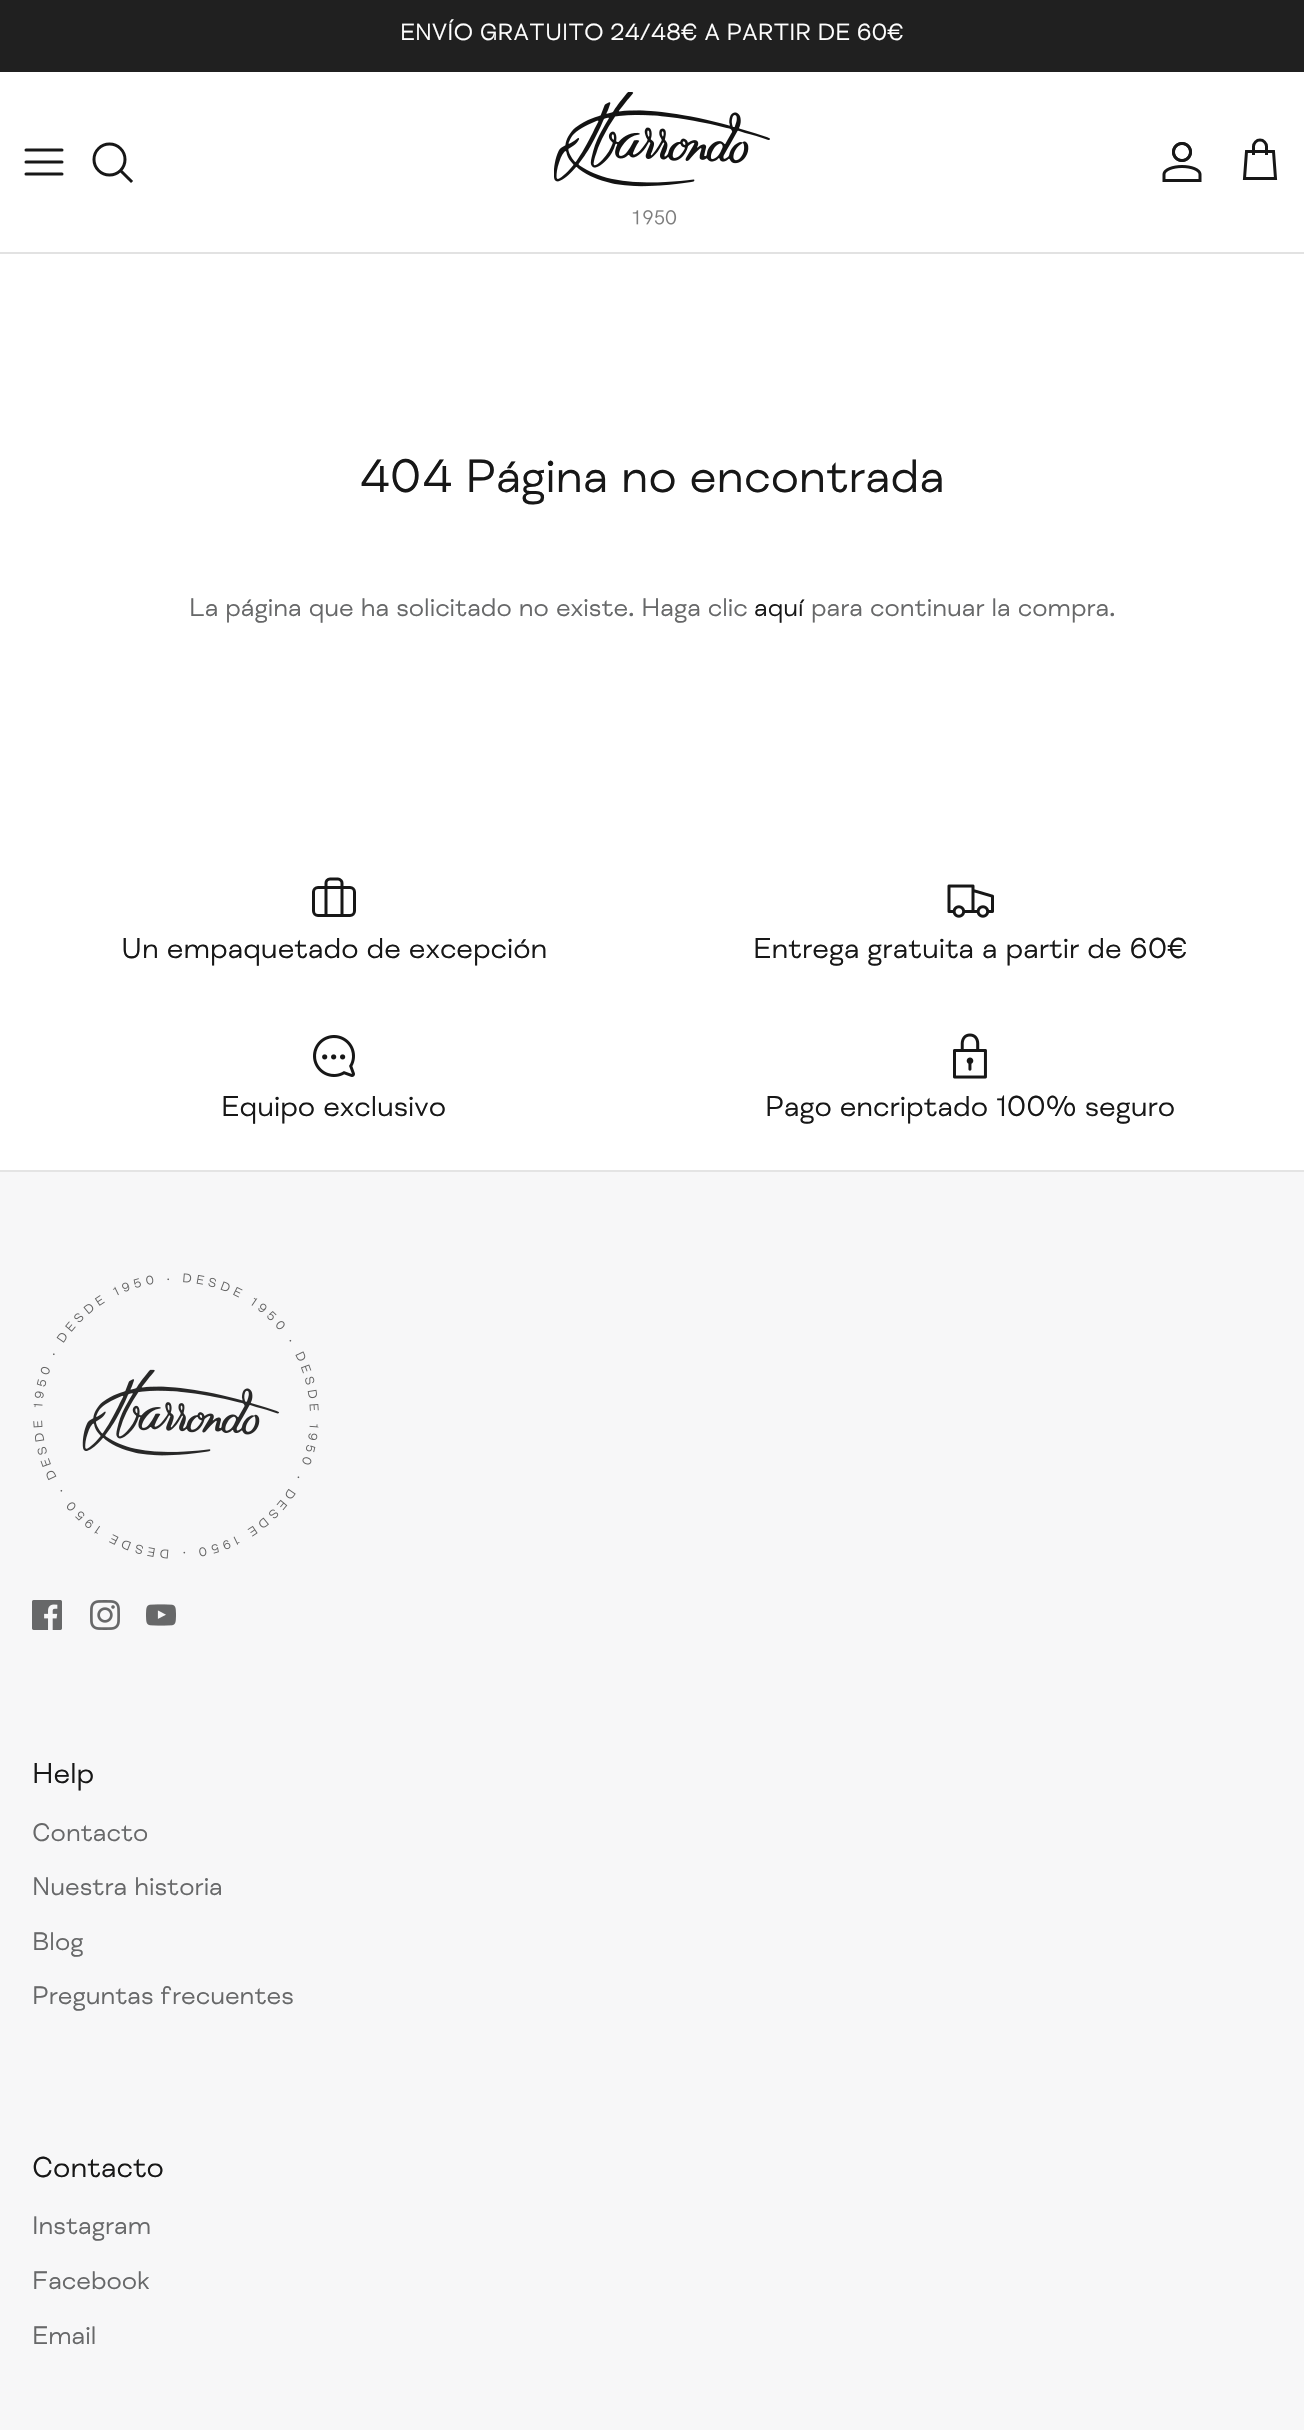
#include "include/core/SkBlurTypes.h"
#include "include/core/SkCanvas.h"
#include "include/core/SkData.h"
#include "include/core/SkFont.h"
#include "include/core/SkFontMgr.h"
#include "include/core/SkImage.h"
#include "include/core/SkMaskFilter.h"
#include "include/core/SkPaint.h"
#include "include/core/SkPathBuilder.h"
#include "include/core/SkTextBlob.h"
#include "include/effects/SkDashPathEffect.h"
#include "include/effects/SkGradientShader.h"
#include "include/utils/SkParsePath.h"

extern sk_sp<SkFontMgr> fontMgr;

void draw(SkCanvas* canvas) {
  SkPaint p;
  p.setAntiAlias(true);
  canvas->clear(SK_ColorWHITE);
  p.setColor(SkColorSetRGB(32, 32, 32));
  canvas->drawRect(SkRect::MakeLTRB(0, 0, 1304, 72), p);
  p.setColor(SkColorSetRGB(226, 226, 226));
  canvas->drawRect(SkRect::MakeLTRB(0, 252, 1304, 254), p);
  p.setStyle(SkPaint::kStroke_Style);
  p.setStrokeWidth(3);
  p.setStrokeCap(SkPaint::kRound_Cap);
  p.setStrokeJoin(SkPaint::kRound_Join);
  p.setColor(SkColorSetRGB(23, 23, 23));
  canvas->drawPath(SkPathBuilder().moveTo(26, 162).lineTo(62, 162).moveTo(26, 150).lineTo(62, 150).moveTo(26, 174).lineTo(62, 174).detach(), p);
  p.setStrokeCap(SkPaint::kButt_Cap);
  p.setStrokeJoin(SkPaint::kMiter_Join);
  canvas->drawCircle(109.5f, 159.5f, 15.5f, p);
  p.setStrokeCap(SkPaint::kSquare_Cap);
  canvas->drawPath(SkPathBuilder().moveTo(122, 172).lineTo(131, 181).detach(), p);
  canvas->drawImageRect(SkImages::DeferredFromEncodedData(SkData::MakeFromFileName("images/1.png")), SkRect::MakeLTRB(554, 92, 770, 225), SkSamplingOptions());
  canvas->drawImageRect(SkImages::DeferredFromEncodedData(SkData::MakeFromFileName("images/2.png")), SkRect::MakeLTRB(1162, 142, 1202, 182), SkSamplingOptions());
  p.setStrokeCap(SkPaint::kButt_Cap);
  canvas->drawPath(SkPathBuilder().moveTo(1266.5f, 155).lineTo(1266.5f, 146.5f).cubicTo(1266.5f, 143, 1263.5f, 140, 1260, 140).cubicTo(1256.5f, 140, 1253.5f, 143, 1253.5f, 146.5f).lineTo(1253.5f, 155).moveTo(1246.5f, 151.5f).lineTo(1273.5f, 151.5f).lineTo(1275.5f, 178.5f).lineTo(1244.5f, 178.5f).close().detach(), p);
  p.setStyle(SkPaint::kFill_Style);
  p.setColor(SkColorSetRGB(247, 247, 248));
  canvas->drawRect(SkRect::MakeLTRB(0, 1172, 1304, 2430), p);
  p.setStyle(SkPaint::kStroke_Style);
  p.setColor(SkColorSetRGB(23, 23, 23));
  canvas->drawRoundRect(SkRect::MakeLTRB(313.5f, 887.5f, 354.5f, 915.5f), 4.5f, 4.5f, p);
  canvas->drawPath(SkPathBuilder().moveTo(342, 915.5f).lineTo(342, 883).cubicTo(342, 882, 341.5f, 881, 341, 880.5f).cubicTo(340, 879.5f, 339, 879, 338, 879).lineTo(330, 879).cubicTo(327.5f, 879, 326, 881, 326, 883).lineTo(326, 915.5f).detach(), p);
  canvas->drawImageRect(SkImages::DeferredFromEncodedData(SkData::MakeFromFileName("images/3.png")), SkRect::MakeLTRB(947, 884, 994, 918), SkSamplingOptions());
  canvas->drawImageRect(SkImages::DeferredFromEncodedData(SkData::MakeFromFileName("images/4.png")), SkRect::MakeLTRB(313, 1035, 355, 1077), SkSamplingOptions());
  canvas->drawImageRect(SkImages::DeferredFromEncodedData(SkData::MakeFromFileName("images/5.png")), SkRect::MakeLTRB(953, 1033, 987, 1079), SkSamplingOptions());
  p.setStyle(SkPaint::kFill_Style);
  p.setColor(SkColorSetRGB(228, 228, 228));
  canvas->drawRect(SkRect::MakeLTRB(0, 1170, 1304, 1172), p);
  canvas->drawImageRect(SkImages::DeferredFromEncodedData(SkData::MakeFromFileName("images/6.png")), SkRect::MakeLTRB(33, 1273, 319, 1559), SkSamplingOptions());
  canvas->drawImageRect(SkImages::DeferredFromEncodedData(SkData::MakeFromFileName("images/7.png")), SkRect::MakeLTRB(32, 1600, 62, 1630), SkSamplingOptions());
  canvas->drawImageRect(SkImages::DeferredFromEncodedData(SkData::MakeFromFileName("images/8.png")), SkRect::MakeLTRB(90, 1600, 120, 1630), SkSamplingOptions());
  canvas->drawImageRect(SkImages::DeferredFromEncodedData(SkData::MakeFromFileName("images/9.png")), SkRect::MakeLTRB(146, 1604, 176, 1626), SkSamplingOptions());
  SkFont font1(fontMgr->matchFamilyStyle("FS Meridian", SkFontStyle::Normal()), 24);
  font1.setSubpixel(true);
  p.setColor(SK_ColorWHITE);
  canvas->drawString("ENVÍO GRATUITO 24/48€ A PARTIR DE 60€", 400, 40, font1, p);
  SkFont font2(fontMgr->matchFamilyStyle("FS Meridian", SkFontStyle::Normal()), 48);
  font2.setSubpixel(true);
  p.setColor(SkColorSetRGB(23, 23, 23));
  canvas->drawString("404 Página no encontrada", 359, 492, font2, p);
  SkFont font3(fontMgr->matchFamilyStyle("FS Meridian", SkFontStyle::Normal()), 26);
  font3.setSubpixel(true);
  p.setColor(SkColorSetRGB(103, 104, 105));
  canvas->drawString("La página que ha solicitado no existe. Haga clic", 189, 616, font3, p);
  p.setColor(SkColorSetRGB(23, 23, 23));
  canvas->drawString("aquí", 754, 616, font3, p);
  p.setColor(SkColorSetRGB(103, 104, 105));
  canvas->drawString("para continuar la compra.", 811, 616, font3, p);
  SkFont font4(fontMgr->matchFamilyStyle("FS Meridian", SkFontStyle::Normal()), 29.5f);
  font4.setSubpixel(true);
  p.setColor(SkColorSetRGB(23, 23, 23));
  canvas->drawString("Un empaquetado de excepción", 121, 958, font4, p);
  canvas->drawString("Entrega gratuita a partir de 60€", 753, 958, font4, p);
  canvas->drawString("Equipo exclusivo", 221, 1116, font4, p);
  canvas->drawString("Pago encriptado 100% seguro", 765, 1116, font4, p);
  canvas->drawString("Help", 32, 1783, font4, p);
  p.setColor(SkColorSetRGB(103, 104, 105));
  canvas->drawString("Contacto", 32, 1841, font3, p);
  canvas->drawString("Nuestra historia", 32, 1895, font3, p);
  canvas->drawString("Blog", 32, 1950, font3, p);
  canvas->drawString("Preguntas frecuentes", 32, 2004, font3, p);
  p.setColor(SkColorSetRGB(23, 23, 23));
  canvas->drawString("Contacto", 32, 2177, font4, p);
  p.setColor(SkColorSetRGB(103, 104, 105));
  canvas->drawString("Instagram", 32, 2234, font3, p);
  canvas->drawString("Facebook", 32, 2289, font3, p);
  canvas->drawString("Email", 32, 2344, font3, p);
}
